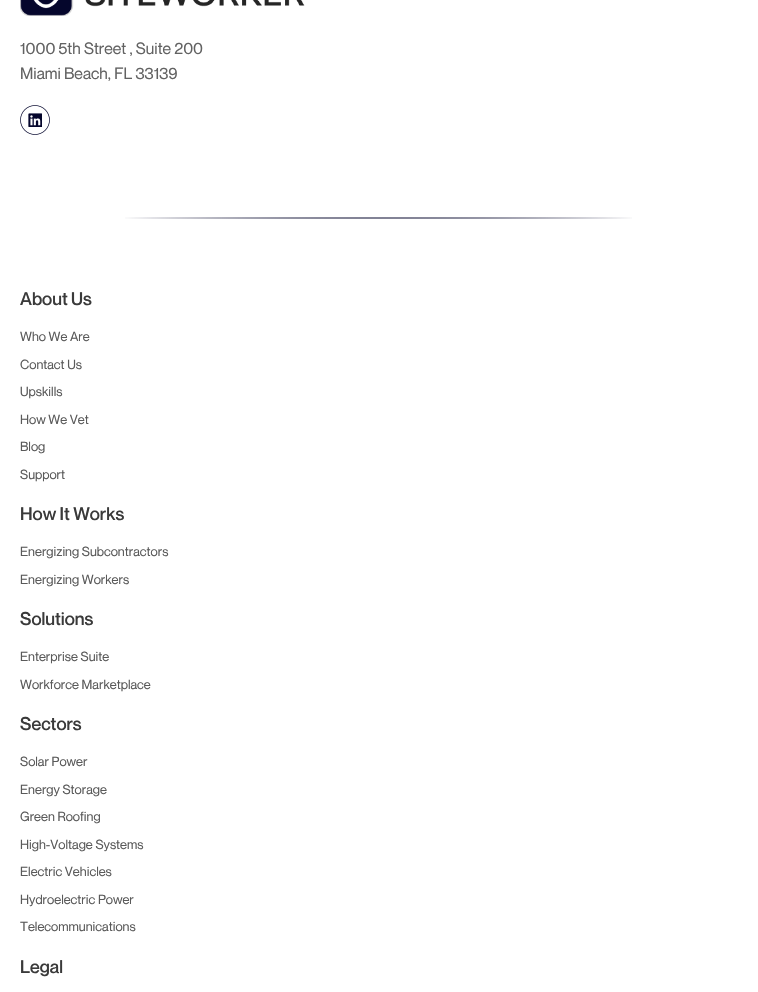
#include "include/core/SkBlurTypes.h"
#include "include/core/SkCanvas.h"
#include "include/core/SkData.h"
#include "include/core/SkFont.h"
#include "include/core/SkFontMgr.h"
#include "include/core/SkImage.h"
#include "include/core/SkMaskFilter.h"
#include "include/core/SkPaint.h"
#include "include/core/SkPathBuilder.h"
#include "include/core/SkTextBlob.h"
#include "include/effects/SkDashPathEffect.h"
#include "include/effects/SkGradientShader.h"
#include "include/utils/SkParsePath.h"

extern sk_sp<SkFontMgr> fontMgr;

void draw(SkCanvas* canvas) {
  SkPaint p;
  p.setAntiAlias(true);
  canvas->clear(SK_ColorWHITE);
  canvas->drawImageRect(SkImages::DeferredFromEncodedData(SkData::MakeFromFileName("images/1.png")), SkRect::MakeLTRB(20, 0, 305, 16), SkSamplingOptions());
  canvas->drawImageRect(SkImages::DeferredFromEncodedData(SkData::MakeFromFileName("images/2.png")), SkRect::MakeLTRB(20, 105, 50, 135), SkSamplingOptions());
  canvas->drawImageRect(SkImages::DeferredFromEncodedData(SkData::MakeFromFileName("images/3.png")), SkRect::MakeLTRB(125, 217, 632, 219), SkSamplingOptions());
  SkFont font1(fontMgr->matchFamilyStyle("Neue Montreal", SkFontStyle::Normal()), 16);
  font1.setSubpixel(true);
  p.setColor(SkColorSetRGB(98, 98, 98));
  canvas->drawString("1000 5th Street , Suite 200", 20, 54, font1, p);
  canvas->drawString("Miami Beach, FL 33139", 20, 79, font1, p);
  SkFont font2(fontMgr->matchFamilyStyle("Neue Montreal", SkFontStyle(500, SkFontStyle::kNormal_Width, SkFontStyle::kUpright_Slant)), 18);
  font2.setSubpixel(true);
  p.setColor(SkColorSetRGB(58, 58, 58));
  canvas->drawString("About Us", 20, 305, font2, p);
  SkFont font3(fontMgr->matchFamilyStyle("Neue Montreal", SkFontStyle::Normal()), 13);
  font3.setSubpixel(true);
  p.setColor(SkColorSetRGB(90, 90, 90));
  canvas->drawString("Who We Are", 20, 341, font3, p);
  canvas->drawString("Contact Us", 20, 369, font3, p);
  canvas->drawString("Upskills", 20, 396, font3, p);
  canvas->drawString("How We Vet", 20, 424, font3, p);
  canvas->drawString("Blog", 20, 451, font3, p);
  canvas->drawString("Support", 20, 479, font3, p);
  p.setColor(SkColorSetRGB(58, 58, 58));
  canvas->drawString("How It Works", 20, 520, font2, p);
  p.setColor(SkColorSetRGB(90, 90, 90));
  canvas->drawString("Energizing Subcontractors", 20, 556, font3, p);
  canvas->drawString("Energizing Workers", 20, 584, font3, p);
  p.setColor(SkColorSetRGB(58, 58, 58));
  canvas->drawString("Solutions", 20, 625, font2, p);
  p.setColor(SkColorSetRGB(90, 90, 90));
  canvas->drawString("Enterprise Suite", 20, 661, font3, p);
  canvas->drawString("Workforce Marketplace", 20, 689, font3, p);
  p.setColor(SkColorSetRGB(58, 58, 58));
  canvas->drawString("Sectors", 20, 730, font2, p);
  p.setColor(SkColorSetRGB(90, 90, 90));
  canvas->drawString("Solar Power", 20, 766, font3, p);
  canvas->drawString("Energy Storage", 20, 794, font3, p);
  canvas->drawString("Green Roofing", 20, 821, font3, p);
  canvas->drawString("High-Voltage Systems", 20, 849, font3, p);
  canvas->drawString("Electric Vehicles", 20, 876, font3, p);
  canvas->drawString("Hydroelectric Power", 20, 904, font3, p);
  canvas->drawString("Telecommunications", 20, 931, font3, p);
  p.setColor(SkColorSetRGB(58, 58, 58));
  canvas->drawString("Legal", 20, 973, font2, p);
}
